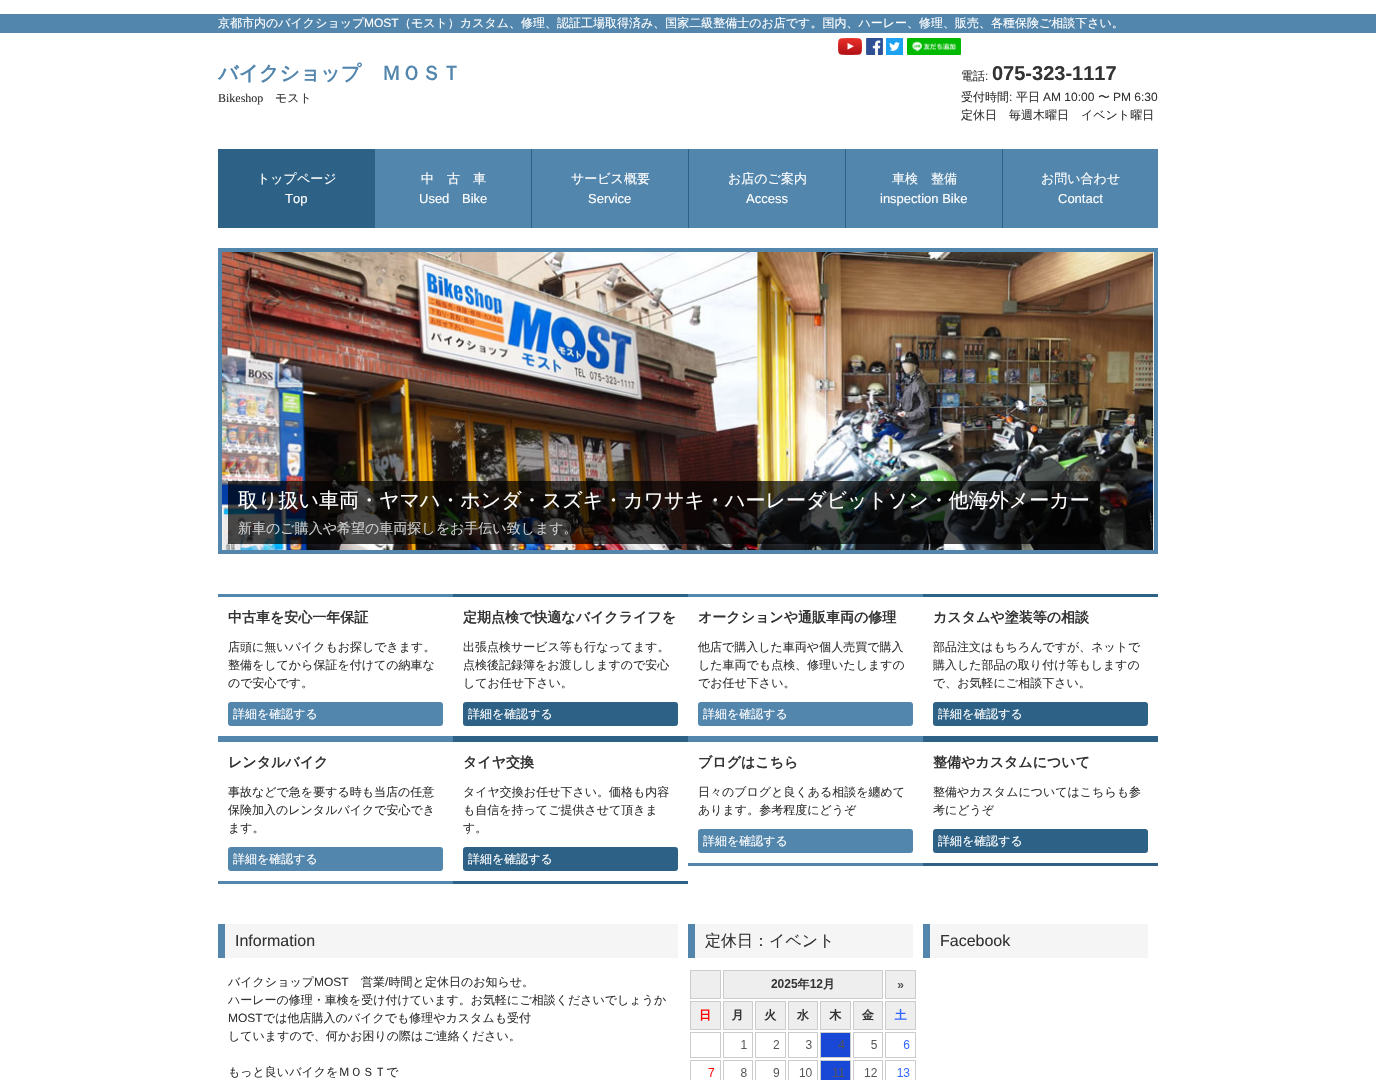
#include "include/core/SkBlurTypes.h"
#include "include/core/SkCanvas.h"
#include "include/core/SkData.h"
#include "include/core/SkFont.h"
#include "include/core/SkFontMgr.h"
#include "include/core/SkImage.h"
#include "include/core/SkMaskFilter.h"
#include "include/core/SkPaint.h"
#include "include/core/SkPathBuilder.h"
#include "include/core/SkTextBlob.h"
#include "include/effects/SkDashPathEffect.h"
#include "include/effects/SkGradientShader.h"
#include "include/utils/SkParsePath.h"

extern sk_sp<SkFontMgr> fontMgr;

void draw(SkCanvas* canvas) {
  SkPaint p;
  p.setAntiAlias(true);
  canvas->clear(SK_ColorWHITE);
  p.setColor(SkColorSetRGB(83, 134, 173));
  canvas->drawRect(SkRect::MakeLTRB(0, 14, 1376, 33), p);
  canvas->drawImageRect(SkImages::DeferredFromEncodedData(SkData::MakeFromFileName("images/1.png")), SkRect::MakeLTRB(838, 38, 862, 55), SkSamplingOptions());
  canvas->drawImageRect(SkImages::DeferredFromEncodedData(SkData::MakeFromFileName("images/2.png")), SkRect::MakeLTRB(866, 38, 883, 55), SkSamplingOptions());
  canvas->drawImageRect(SkImages::DeferredFromEncodedData(SkData::MakeFromFileName("images/3.png")), SkRect::MakeLTRB(886, 38, 903, 55), SkSamplingOptions());
  canvas->drawImageRect(SkImages::DeferredFromEncodedData(SkData::MakeFromFileName("images/4.png")), SkRect::MakeLTRB(907, 38, 961, 55), SkSamplingOptions());
  p.setColor(SkColorSetRGB(45, 98, 134));
  canvas->drawRect(SkRect::MakeLTRB(218, 149, 375, 228), p);
  p.setColor(SkColorSetRGB(83, 134, 173));
  canvas->drawRect(SkRect::MakeLTRB(375, 149, 531, 228), p);
  canvas->drawRect(SkRect::MakeLTRB(532, 149, 688, 228), p);
  p.setColor(SkColorSetRGB(45, 98, 134));
  canvas->drawRect(SkRect::MakeLTRB(531, 149, 532, 228), p);
  p.setColor(SkColorSetRGB(83, 134, 173));
  canvas->drawRect(SkRect::MakeLTRB(689, 149, 845, 228), p);
  p.setColor(SkColorSetRGB(45, 98, 134));
  canvas->drawRect(SkRect::MakeLTRB(688, 149, 689, 228), p);
  p.setColor(SkColorSetRGB(83, 134, 173));
  canvas->drawRect(SkRect::MakeLTRB(846, 149, 1002, 228), p);
  p.setColor(SkColorSetRGB(45, 98, 134));
  canvas->drawRect(SkRect::MakeLTRB(845, 149, 846, 228), p);
  p.setColor(SkColorSetRGB(83, 134, 173));
  canvas->drawRect(SkRect::MakeLTRB(1003, 149, 1158, 228), p);
  p.setColor(SkColorSetRGB(45, 98, 134));
  canvas->drawRect(SkRect::MakeLTRB(1002, 149, 1003, 228), p);
  p.setColor(SkColorSetRGB(83, 134, 173));
  canvas->drawRect(SkRect::MakeLTRB(218, 248, 1158, 554), p);
  canvas->drawImageRect(SkImages::DeferredFromEncodedData(SkData::MakeFromFileName("images/5.png")), SkRect::MakeLTRB(222, 252, 1154, 550), SkSamplingOptions());
  p.setColor(SkColorSetARGB(179, 0, 0, 0));
  canvas->drawRect(SkRect::MakeLTRB(228, 481, 1100, 544), p);
  p.setColor(SkColorSetRGB(83, 134, 173));
  canvas->drawRect(SkRect::MakeLTRB(218, 594, 453, 597), p);
  canvas->drawRect(SkRect::MakeLTRB(218, 736, 453, 742), p);
  canvas->drawRoundRect(SkRect::MakeLTRB(228, 702, 443, 726), 3, 3, p);
  p.setColor(SkColorSetRGB(45, 98, 134));
  canvas->drawRect(SkRect::MakeLTRB(453, 594, 688, 597), p);
  canvas->drawRect(SkRect::MakeLTRB(453, 736, 688, 742), p);
  canvas->drawRoundRect(SkRect::MakeLTRB(463, 702, 678, 726), 3, 3, p);
  p.setColor(SkColorSetRGB(83, 134, 173));
  canvas->drawRect(SkRect::MakeLTRB(688, 594, 923, 597), p);
  canvas->drawRect(SkRect::MakeLTRB(688, 736, 923, 742), p);
  canvas->drawRoundRect(SkRect::MakeLTRB(698, 702, 913, 726), 3, 3, p);
  p.setColor(SkColorSetRGB(45, 98, 134));
  canvas->drawRect(SkRect::MakeLTRB(923, 594, 1158, 597), p);
  canvas->drawRect(SkRect::MakeLTRB(923, 736, 1158, 742), p);
  canvas->drawRoundRect(SkRect::MakeLTRB(933, 702, 1148, 726), 3, 3, p);
  p.setColor(SkColorSetRGB(83, 134, 173));
  canvas->drawRect(SkRect::MakeLTRB(218, 881, 453, 884), p);
  canvas->drawRoundRect(SkRect::MakeLTRB(228, 847, 443, 871), 3, 3, p);
  p.setColor(SkColorSetRGB(45, 98, 134));
  canvas->drawRect(SkRect::MakeLTRB(453, 881, 688, 884), p);
  canvas->drawRoundRect(SkRect::MakeLTRB(463, 847, 678, 871), 3, 3, p);
  p.setColor(SkColorSetRGB(83, 134, 173));
  canvas->drawRect(SkRect::MakeLTRB(688, 863, 923, 866), p);
  canvas->drawRoundRect(SkRect::MakeLTRB(698, 829, 913, 853), 3, 3, p);
  p.setColor(SkColorSetRGB(45, 98, 134));
  canvas->drawRect(SkRect::MakeLTRB(923, 863, 1158, 866), p);
  canvas->drawRoundRect(SkRect::MakeLTRB(933, 829, 1148, 853), 3, 3, p);
  p.setColor(SkColorSetRGB(245, 245, 245));
  canvas->drawRect(SkRect::MakeLTRB(225, 924, 678, 958), p);
  p.setColor(SkColorSetRGB(83, 134, 173));
  canvas->drawRect(SkRect::MakeLTRB(218, 924, 225, 958), p);
  p.setColor(SkColorSetRGB(245, 245, 245));
  canvas->drawRect(SkRect::MakeLTRB(695, 924, 913, 958), p);
  p.setColor(SkColorSetRGB(83, 134, 173));
  canvas->drawRect(SkRect::MakeLTRB(688, 924, 695, 958), p);
  canvas->drawImageRect(SkImages::DeferredFromEncodedData(SkData::MakeFromFileName("images/6.png")), SkRect::MakeLTRB(690, 970, 916, 1080), SkSamplingOptions());
  p.setColor(SkColorSetRGB(245, 245, 245));
  canvas->drawRect(SkRect::MakeLTRB(930, 924, 1148, 958), p);
  p.setColor(SkColorSetRGB(83, 134, 173));
  canvas->drawRect(SkRect::MakeLTRB(923, 924, 930, 958), p);
  SkFont font1(fontMgr->matchFamilyStyle("WenQuanYi Zen Hei", SkFontStyle(500, SkFontStyle::kNormal_Width, SkFontStyle::kUpright_Slant)), 12);
  font1.setSubpixel(true);
  p.setColor(SK_ColorWHITE);
  canvas->drawString("京都市内のバイクショップ", 218, 27, font1, p);
  SkFont font2(fontMgr->matchFamilyStyle("Liberation Sans", SkFontStyle::Normal()), 12);
  font2.setSubpixel(true);
  canvas->drawString("MOST", 364, 27, font2, p);
  canvas->drawString("（モスト）カスタム、修理、認証工場取得済み、国家二級整備士のお店です。国内、ハーレー、修理、販売、各種保険ご相談下さい。", 399, 27, font1, p);
  SkFont font3(fontMgr->matchFamilyStyle("WenQuanYi Zen Hei", SkFontStyle::Bold()), 20);
  font3.setSubpixel(true);
  p.setColor(SkColorSetRGB(83, 134, 173));
  canvas->drawString("バイクショップ　ＭＯＳＴ", 218, 80, font3, p);
  SkFont font4(fontMgr->matchFamilyStyle("Liberation Serif", SkFontStyle::Normal()), 12);
  font4.setSubpixel(true);
  p.setColor(SkColorSetRGB(51, 51, 51));
  canvas->drawString("Bikeshop", 218, 102, font4, p);
  canvas->drawString("モスト", 275, 102, font1, p);
  canvas->drawString("電話", 961, 80, font1, p);
  canvas->drawString(":", 985, 80, font2, p);
  SkFont font5(fontMgr->matchFamilyStyle("Liberation Sans", SkFontStyle::Bold()), 20);
  font5.setSubpixel(true);
  canvas->drawString("075-323-1117", 992, 80, font5, p);
  canvas->drawString("受付時間", 961, 101, font1, p);
  canvas->drawString(":", 1009, 101, font2, p);
  canvas->drawString("平日", 1016, 101, font1, p);
  canvas->drawString("AM 10:00", 1043, 101, font2, p);
  canvas->drawString("〜", 1098, 101, font1, p);
  canvas->drawString("PM 6:30", 1113, 101, font2, p);
  canvas->drawString("定休日　毎週木曜日　イベント曜日", 961, 119, font1, p);
  SkFont font6(fontMgr->matchFamilyStyle("WenQuanYi Zen Hei", SkFontStyle(500, SkFontStyle::kNormal_Width, SkFontStyle::kUpright_Slant)), 13);
  font6.setSubpixel(true);
  p.setColor(SK_ColorWHITE);
  canvas->drawString("トップページ", 257, 183, font6, p);
  SkFont font7(fontMgr->matchFamilyStyle("Liberation Sans", SkFontStyle::Normal()), 13);
  font7.setSubpixel(true);
  canvas->drawString("Top", 285, 203, font7, p);
  canvas->drawString("中　古　車", 421, 183, font6, p);
  canvas->drawString("Used", 419, 203, font7, p);
  canvas->drawString("Bike", 462, 203, font7, p);
  canvas->drawString("サービス概要", 571, 183, font6, p);
  canvas->drawString("Service", 588, 203, font7, p);
  canvas->drawString("お店のご案内", 728, 183, font6, p);
  canvas->drawString("Access", 746, 203, font7, p);
  canvas->drawString("車検　整備", 892, 183, font6, p);
  canvas->drawString("inspection Bike", 880, 203, font7, p);
  canvas->drawString("お問い合わせ", 1041, 183, font6, p);
  canvas->drawString("Contact", 1058, 203, font7, p);
  SkFont font8(fontMgr->matchFamilyStyle("WenQuanYi Zen Hei", SkFontStyle(500, SkFontStyle::kNormal_Width, SkFontStyle::kUpright_Slant)), 20);
  font8.setSubpixel(true);
  canvas->drawString("取り扱い車両・ヤマハ・ホンダ・スズキ・カワサキ・ハーレーダビットソン・他海外メーカー", 238, 507, font8, p);
  SkFont font9(fontMgr->matchFamilyStyle("WenQuanYi Zen Hei", SkFontStyle(500, SkFontStyle::kNormal_Width, SkFontStyle::kUpright_Slant)), 14);
  font9.setSubpixel(true);
  p.setColor(SkColorSetRGB(204, 204, 204));
  canvas->drawString("新車のご購入や希望の車両探しをお手伝い致します。", 238, 533, font9, p);
  SkFont font10(fontMgr->matchFamilyStyle("WenQuanYi Zen Hei", SkFontStyle::Bold()), 14);
  font10.setSubpixel(true);
  p.setColor(SkColorSetRGB(51, 51, 51));
  canvas->drawString("中古車を安心一年保証", 228, 622, font10, p);
  canvas->drawString("店頭に無いバイクもお探しできます。", 228, 651, font1, p);
  canvas->drawString("整備をしてから保証を付けての納車な", 228, 669, font1, p);
  canvas->drawString("ので安心です。", 228, 687, font1, p);
  p.setColor(SK_ColorWHITE);
  canvas->drawString("詳細を確認する", 233, 718, font1, p);
  p.setColor(SkColorSetRGB(51, 51, 51));
  canvas->drawString("定期点検で快適なバイクライフを", 463, 622, font10, p);
  canvas->drawString("出張点検サービス等も行なってます。", 463, 651, font1, p);
  canvas->drawString("点検後記録簿をお渡ししますので安心", 463, 669, font1, p);
  canvas->drawString("してお任せ下さい。", 463, 687, font1, p);
  p.setColor(SK_ColorWHITE);
  canvas->drawString("詳細を確認する", 468, 718, font1, p);
  p.setColor(SkColorSetRGB(51, 51, 51));
  canvas->drawString("オークションや通販車両の修理", 698, 622, font10, p);
  canvas->drawString("他店で購入した車両や個人売買で購入", 698, 651, font1, p);
  canvas->drawString("した車両でも点検、修理いたしますの", 698, 669, font1, p);
  canvas->drawString("でお任せ下さい。", 698, 687, font1, p);
  p.setColor(SK_ColorWHITE);
  canvas->drawString("詳細を確認する", 703, 718, font1, p);
  p.setColor(SkColorSetRGB(51, 51, 51));
  canvas->drawString("カスタムや塗装等の相談", 933, 622, font10, p);
  canvas->drawString("部品注文はもちろんですが、ネットで", 933, 651, font1, p);
  canvas->drawString("購入した部品の取り付け等もしますの", 933, 669, font1, p);
  canvas->drawString("で、お気軽にご相談下さい。", 933, 687, font1, p);
  p.setColor(SK_ColorWHITE);
  canvas->drawString("詳細を確認する", 938, 718, font1, p);
  p.setColor(SkColorSetRGB(51, 51, 51));
  canvas->drawString("レンタルバイク", 228, 767, font10, p);
  canvas->drawString("事故などで急を要する時も当店の任意", 228, 796, font1, p);
  canvas->drawString("保険加入のレンタルバイクで安心でき", 228, 814, font1, p);
  canvas->drawString("ます。", 228, 832, font1, p);
  p.setColor(SK_ColorWHITE);
  canvas->drawString("詳細を確認する", 233, 863, font1, p);
  p.setColor(SkColorSetRGB(51, 51, 51));
  canvas->drawString("タイヤ交換", 463, 767, font10, p);
  canvas->drawString("タイヤ交換お任せ下さい。価格も内容", 463, 796, font1, p);
  canvas->drawString("も自信を持ってご提供させて頂きま", 463, 814, font1, p);
  canvas->drawString("す。", 463, 832, font1, p);
  p.setColor(SK_ColorWHITE);
  canvas->drawString("詳細を確認する", 468, 863, font1, p);
  p.setColor(SkColorSetRGB(51, 51, 51));
  canvas->drawString("ブログはこちら", 698, 767, font10, p);
  canvas->drawString("日々のブログと良くある相談を纏めて", 698, 796, font1, p);
  canvas->drawString("あります。参考程度にどうぞ", 698, 814, font1, p);
  p.setColor(SK_ColorWHITE);
  canvas->drawString("詳細を確認する", 703, 845, font1, p);
  p.setColor(SkColorSetRGB(51, 51, 51));
  canvas->drawString("整備やカスタムについて", 933, 767, font10, p);
  canvas->drawString("整備やカスタムについてはこちらも参", 933, 796, font1, p);
  canvas->drawString("考にどうぞ", 933, 814, font1, p);
  p.setColor(SK_ColorWHITE);
  canvas->drawString("詳細を確認する", 938, 845, font1, p);
  SkFont font11(fontMgr->matchFamilyStyle("Liberation Sans", SkFontStyle::Normal()), 16);
  font11.setSubpixel(true);
  p.setColor(SkColorSetRGB(51, 51, 51));
  canvas->drawString("Information", 235, 946, font11, p);
  canvas->drawString("バイクショップ", 228, 986, font1, p);
  canvas->drawString("MOST", 314, 986, font2, p);
  canvas->drawString("営業 時間と定休日のお知らせ。", 361, 986, font1, p);
  canvas->drawString("/", 385, 986, font2, p);
  canvas->drawString("ハーレーの修理・車検を受け付けています。お気軽にご相談くださいでしょうか", 228, 1004, font1, p);
  canvas->drawString("MOST", 228, 1022, font2, p);
  canvas->drawString("では他店購入のバイクでも修理やカスタムも受付", 263, 1022, font1, p);
  canvas->drawString("していますので、何かお困りの際はご連絡ください。", 228, 1040, font1, p);
  canvas->drawString("もっと良いバイクをＭＯＳＴで", 228, 1076, font1, p);
  SkFont font12(fontMgr->matchFamilyStyle("WenQuanYi Zen Hei", SkFontStyle(500, SkFontStyle::kNormal_Width, SkFontStyle::kUpright_Slant)), 16);
  font12.setSubpixel(true);
  canvas->drawString("定休日：イベント", 705, 946, font12, p);
  canvas->drawString("Facebook", 940, 946, font11, p);
}
